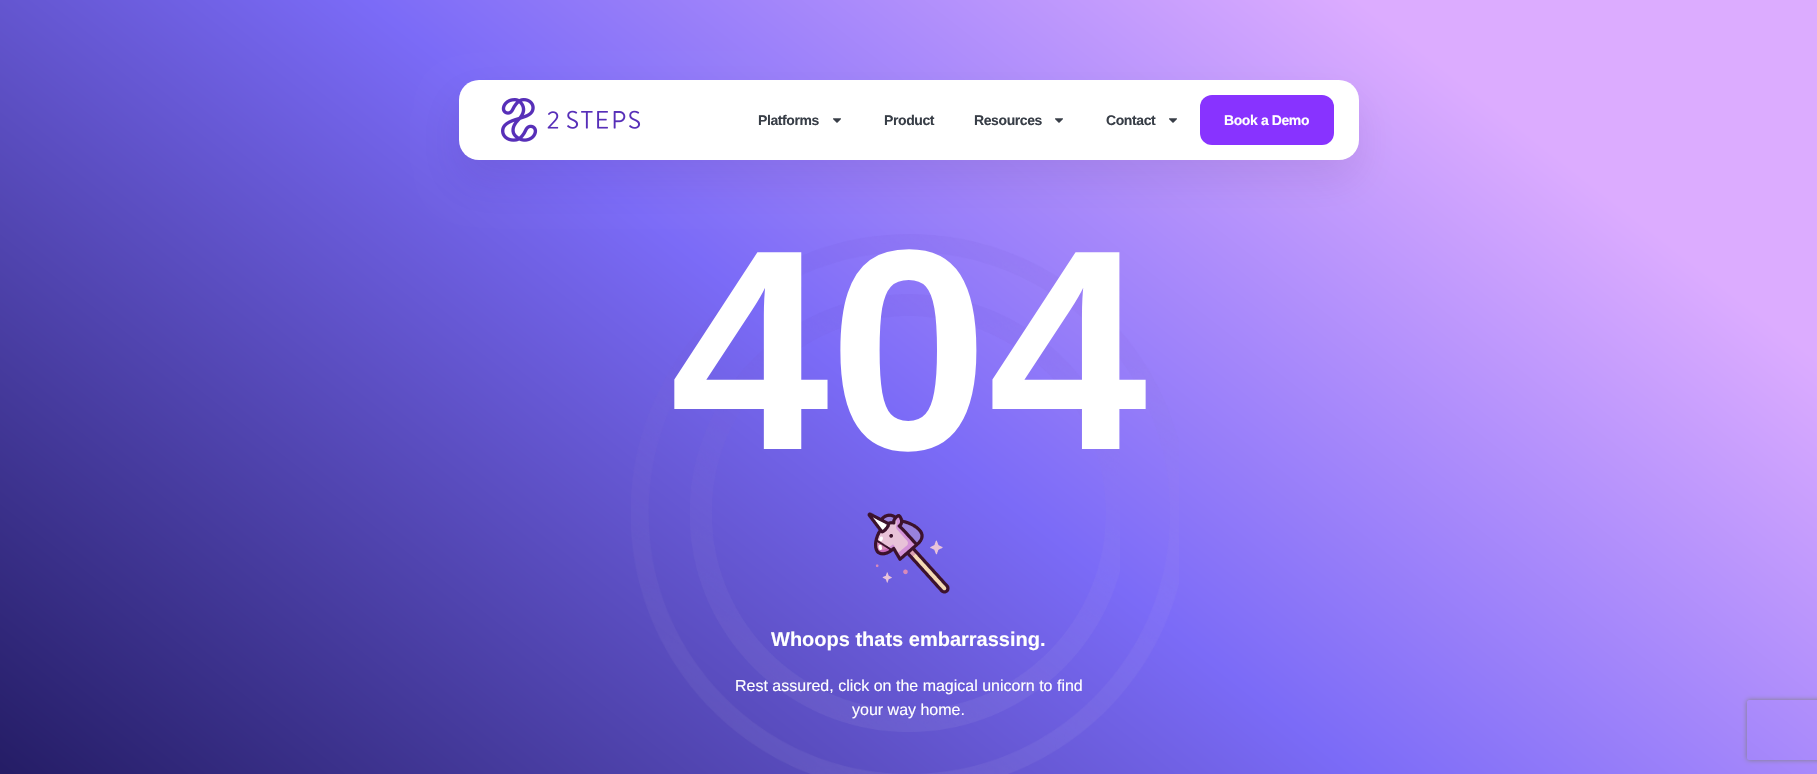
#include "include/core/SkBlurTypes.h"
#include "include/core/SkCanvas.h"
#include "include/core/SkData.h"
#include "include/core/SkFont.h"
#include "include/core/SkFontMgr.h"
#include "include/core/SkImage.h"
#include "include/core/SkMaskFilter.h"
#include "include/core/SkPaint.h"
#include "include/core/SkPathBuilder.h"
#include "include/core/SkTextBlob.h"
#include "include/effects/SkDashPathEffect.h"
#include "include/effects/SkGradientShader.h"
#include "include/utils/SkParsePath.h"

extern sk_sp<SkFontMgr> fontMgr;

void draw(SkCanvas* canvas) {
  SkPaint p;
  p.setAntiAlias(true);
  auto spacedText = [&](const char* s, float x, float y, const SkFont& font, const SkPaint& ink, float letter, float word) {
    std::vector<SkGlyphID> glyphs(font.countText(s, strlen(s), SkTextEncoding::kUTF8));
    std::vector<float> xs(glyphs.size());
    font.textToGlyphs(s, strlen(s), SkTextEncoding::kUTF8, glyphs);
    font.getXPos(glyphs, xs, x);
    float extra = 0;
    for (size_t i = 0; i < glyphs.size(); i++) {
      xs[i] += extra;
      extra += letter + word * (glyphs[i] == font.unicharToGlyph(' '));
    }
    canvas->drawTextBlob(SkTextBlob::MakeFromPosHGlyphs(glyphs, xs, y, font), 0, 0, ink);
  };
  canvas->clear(SK_ColorWHITE);
  {
    const SkColor colors[] = {SK_ColorBLACK, SkColorSetRGB(16, 10, 67), SkColorSetRGB(123, 107, 247), SkColorSetRGB(220, 172, 255)};
    const float stops[] = {0, 0.59f, 0.81f, 0.94f};
    const SkPoint ends[] = {{-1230, 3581}, {1662, -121}};
    p.setShader(SkGradientShader::MakeLinear(ends, colors, stops, 4, SkTileMode::kClamp));
    p.setAlpha(255);
  }
  canvas->drawRect(SkRect::MakeLTRB(0, 0, 1817, 774), p);
  canvas->drawImageRect(SkImages::DeferredFromEncodedData(SkData::MakeFromFileName("images/3.png")), SkRect::MakeLTRB(631, 234, 1179, 774), SkSamplingOptions());
  p.setShader(nullptr);
  p.setColor(SkColorSetARGB(26, 55, 15, 90));
  p.setMaskFilter(SkMaskFilter::MakeBlur(kNormal_SkBlurStyle, 20));
  canvas->drawRoundRect(SkRect::MakeLTRB(459, 100, 1359, 180), 20, 20, p);
  p.setMaskFilter(nullptr);
  p.setColor(SK_ColorWHITE);
  canvas->drawRoundRect(SkRect::MakeLTRB(459, 80, 1359, 160), 20, 20, p);
  canvas->drawImageRect(SkImages::DeferredFromEncodedData(SkData::MakeFromFileName("images/1.png")), SkRect::MakeLTRB(501, 98, 641, 142), SkSamplingOptions());
  canvas->drawImageRect(SkImages::DeferredFromEncodedData(SkData::MakeFromFileName("images/2.png")), SkRect::MakeLTRB(833, 118, 841, 123), SkSamplingOptions());
  canvas->drawImageRect(SkImages::DeferredFromEncodedData(SkData::MakeFromFileName("images/2.png")), SkRect::MakeLTRB(1055, 118, 1063, 123), SkSamplingOptions());
  canvas->drawImageRect(SkImages::DeferredFromEncodedData(SkData::MakeFromFileName("images/2.png")), SkRect::MakeLTRB(1169, 118, 1177, 123), SkSamplingOptions());
  p.setColor(SkColorSetRGB(136, 51, 255));
  canvas->drawRoundRect(SkRect::MakeLTRB(1200, 95, 1334, 145), 12, 12, p);
  canvas->drawImageRect(SkImages::DeferredFromEncodedData(SkData::MakeFromFileName("images/4.png")), SkRect::MakeLTRB(690, 294, 1120, 732), SkSamplingOptions());
  canvas->drawImageRect(SkImages::DeferredFromEncodedData(SkData::MakeFromFileName("images/5.png")), SkRect::MakeLTRB(867, 512, 950, 594), SkSamplingOptions());
  canvas->save();
  canvas->clipPath(SkPathBuilder(SkPathFillType::kEvenOdd).moveTo(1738, 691).lineTo(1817, 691).lineTo(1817, 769).lineTo(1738, 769).close().moveTo(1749, 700).lineTo(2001, 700).cubicTo(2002, 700, 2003, 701, 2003, 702).lineTo(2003, 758).cubicTo(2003, 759, 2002, 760, 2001, 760).lineTo(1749, 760).cubicTo(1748, 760, 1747, 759, 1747, 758).lineTo(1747, 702).cubicTo(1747, 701, 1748, 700, 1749, 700).close().detach(), true);
  p.setColor(SkColorSetRGB(128, 128, 128));
  p.setMaskFilter(SkMaskFilter::MakeBlur(kNormal_SkBlurStyle, 2.5f));
  canvas->drawRoundRect(SkRect::MakeLTRB(1747, 700, 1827, 760), 2, 2, p);
  p.setMaskFilter(nullptr);
  canvas->restore();
  SkFont font1(fontMgr->matchFamilyStyle("Liberation Sans", SkFontStyle::Bold()), 14);
  font1.setSubpixel(true);
  p.setColor(SkColorSetRGB(56, 62, 71));
  spacedText("Platforms", 758, 125, font1, p, -0.4f, 0);
  spacedText("Product", 884, 125, font1, p, -0.4f, 0);
  spacedText("Resources", 974, 125, font1, p, -0.4f, 0);
  spacedText("Contact", 1106, 125, font1, p, -0.4f, 0);
  p.setColor(SK_ColorWHITE);
  spacedText("Book a Demo", 1224, 125, font1, p, -0.4f, 0);
  SkFont font2(fontMgr->matchFamilyStyle("Liberation Sans", SkFontStyle::Bold()), 286);
  font2.setSubpixel(true);
  canvas->drawString("404", 670, 449, font2, p);
  SkFont font3(fontMgr->matchFamilyStyle("Liberation Sans", SkFontStyle::Bold()), 20);
  font3.setSubpixel(true);
  canvas->drawString("Whoops thats embarrassing.", 771, 646, font3, p);
  SkFont font4(fontMgr->matchFamilyStyle("Liberation Sans", SkFontStyle::Normal()), 16);
  font4.setSubpixel(true);
  canvas->drawString("Rest assured, click on the magical unicorn to find", 735, 691, font4, p);
  canvas->drawString("your way home.", 852, 715, font4, p);
}
